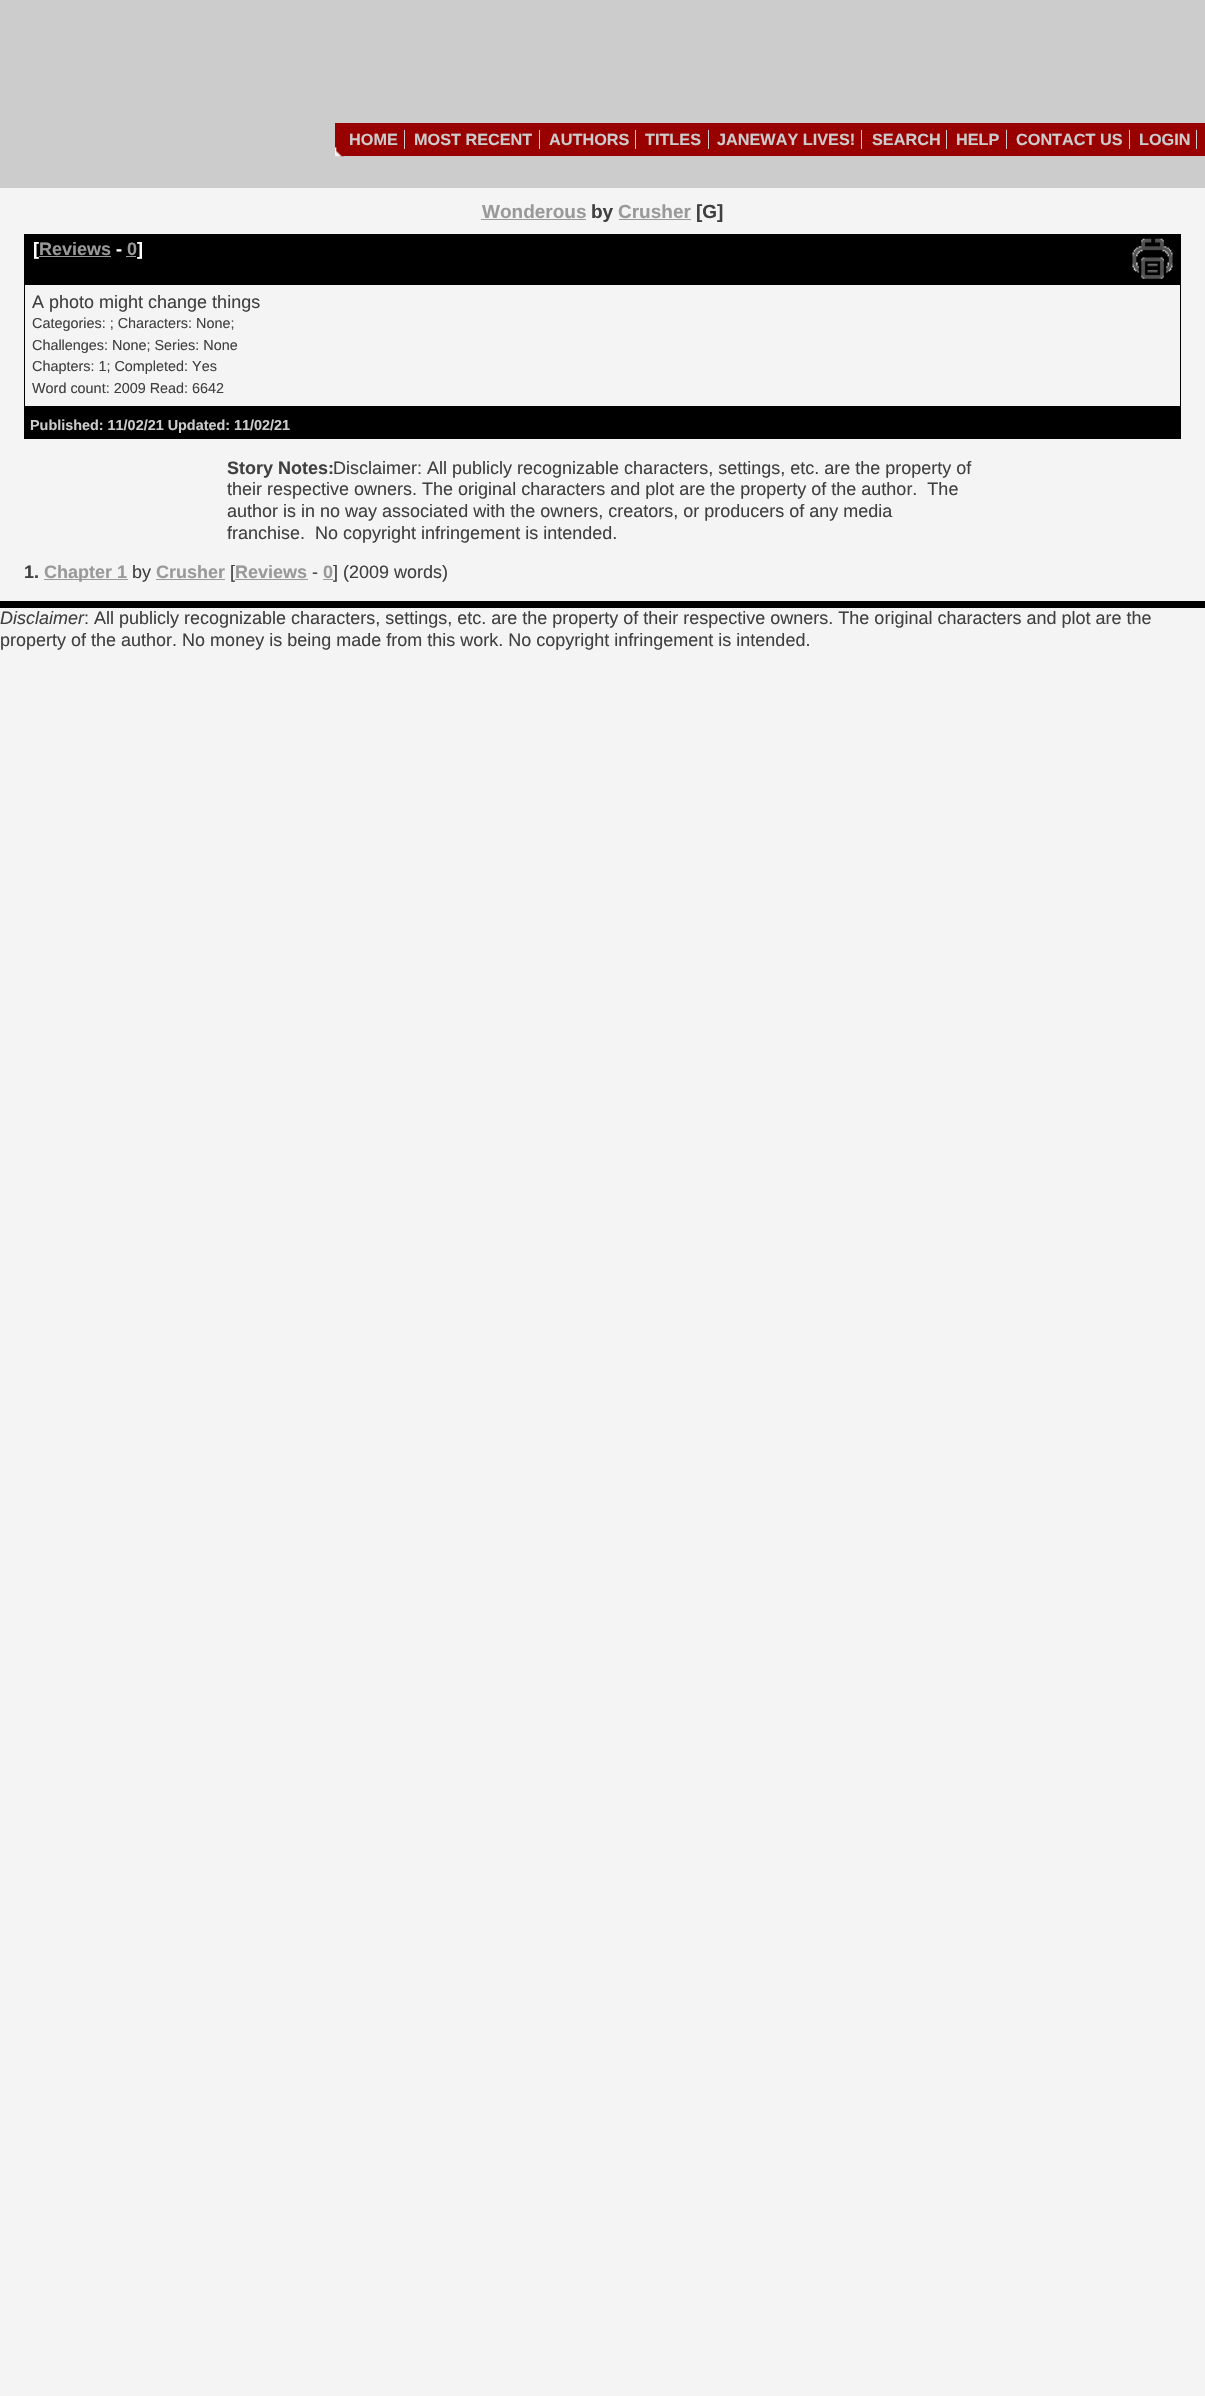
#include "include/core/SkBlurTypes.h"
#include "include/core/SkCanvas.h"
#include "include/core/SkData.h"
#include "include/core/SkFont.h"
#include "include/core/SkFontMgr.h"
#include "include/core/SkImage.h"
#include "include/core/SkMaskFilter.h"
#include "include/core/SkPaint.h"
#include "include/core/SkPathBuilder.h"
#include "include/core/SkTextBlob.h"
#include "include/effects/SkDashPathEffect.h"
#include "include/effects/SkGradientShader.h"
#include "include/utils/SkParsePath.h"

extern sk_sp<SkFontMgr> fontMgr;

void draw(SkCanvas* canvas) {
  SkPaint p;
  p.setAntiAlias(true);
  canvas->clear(SkColorSetRGB(244, 244, 244));
  p.setColor(SkColorSetRGB(204, 204, 204));
  canvas->drawRect(SkRect::MakeLTRB(0, 0, 1205, 188), p);
  p.setColor(SkColorSetRGB(153, 0, 0));
  canvas->drawRect(SkRect::MakeLTRB(335, 123, 1205, 156), p);
  canvas->drawImageRect(SkImages::DeferredFromEncodedData(SkData::MakeFromFileName("images/1.png")), SkRect::MakeLTRB(335, 147, 344, 157), SkSamplingOptions());
  p.setColor(SkColorSetRGB(204, 204, 204));
  canvas->drawRect(SkRect::MakeLTRB(404, 130, 405, 149), p);
  canvas->drawRect(SkRect::MakeLTRB(539, 130, 540, 149), p);
  canvas->drawRect(SkRect::MakeLTRB(635, 130, 636, 149), p);
  canvas->drawRect(SkRect::MakeLTRB(708, 130, 709, 149), p);
  canvas->drawRect(SkRect::MakeLTRB(861, 130, 862, 149), p);
  canvas->drawRect(SkRect::MakeLTRB(946, 130, 947, 149), p);
  canvas->drawRect(SkRect::MakeLTRB(1006, 130, 1007, 149), p);
  canvas->drawRect(SkRect::MakeLTRB(1129, 130, 1130, 149), p);
  canvas->drawRect(SkRect::MakeLTRB(1196, 130, 1197, 149), p);
  p.setColor(SkColorSetRGB(153, 153, 153));
  canvas->drawRect(SkRect::MakeLTRB(481, 219, 586, 220), p);
  canvas->drawRect(SkRect::MakeLTRB(619, 219, 691, 220), p);
  p.setColor(SK_ColorBLACK);
  canvas->drawRect(SkRect::MakeLTRB(24, 234, 1181, 285), p);
  p.setColor(SkColorSetRGB(153, 153, 153));
  canvas->drawRect(SkRect::MakeLTRB(39, 256, 111, 257), p);
  canvas->drawRect(SkRect::MakeLTRB(126, 256, 136, 257), p);
  canvas->drawImageRect(SkImages::DeferredFromEncodedData(SkData::MakeFromFileName("images/2.png")), SkRect::MakeLTRB(1132, 238, 1173, 279), SkSamplingOptions());
  p.setColor(SK_ColorBLACK);
  canvas->drawRect(SkRect::MakeLTRB(1180, 279, 1181, 413), p);
  canvas->drawRect(SkRect::MakeLTRB(24, 406, 1181, 439), p);
  canvas->drawRect(SkRect::MakeLTRB(24, 279, 25, 413), p);
  p.setColor(SkColorSetRGB(153, 153, 153));
  canvas->drawRect(SkRect::MakeLTRB(44, 579, 128, 580), p);
  canvas->drawRect(SkRect::MakeLTRB(156, 579, 225, 580), p);
  canvas->drawRect(SkRect::MakeLTRB(235, 579, 308, 580), p);
  canvas->drawRect(SkRect::MakeLTRB(323, 579, 333, 580), p);
  p.setColor(SK_ColorBLACK);
  canvas->drawRect(SkRect::MakeLTRB(0, 601, 1205, 608), p);
  SkFont font1(fontMgr->matchFamilyStyle("Liberation Sans", SkFontStyle::Bold()), 16.25f);
  font1.setSubpixel(true);
  p.setColor(SkColorSetRGB(204, 204, 204));
  canvas->drawString("HOME", 349, 145, font1, p);
  canvas->drawString("MOST RECENT", 414, 145, font1, p);
  canvas->drawString("AUTHORS", 549, 145, font1, p);
  canvas->drawString("TITLES", 645, 145, font1, p);
  canvas->drawString("JANEWAY LIVES!", 717, 145, font1, p);
  canvas->drawString("SEARCH", 872, 145, font1, p);
  canvas->drawString("HELP", 956, 145, font1, p);
  canvas->drawString("CONTACT US", 1016, 145, font1, p);
  canvas->drawString("LOGIN", 1139, 145, font1, p);
  SkFont font2(fontMgr->matchFamilyStyle("Liberation Sans", SkFontStyle::Bold()), 19);
  font2.setSubpixel(true);
  p.setColor(SkColorSetRGB(153, 153, 153));
  canvas->drawString("Wonderous", 482, 218, font2, p);
  p.setColor(SkColorSetRGB(64, 64, 64));
  canvas->drawString("by", 591, 218, font2, p);
  p.setColor(SkColorSetRGB(153, 153, 153));
  canvas->drawString("Crusher", 618, 218, font2, p);
  p.setColor(SkColorSetRGB(64, 64, 64));
  canvas->drawString("[G]", 696, 218, font2, p);
  SkFont font3(fontMgr->matchFamilyStyle("Liberation Sans", SkFontStyle::Bold()), 18);
  font3.setSubpixel(true);
  p.setColor(SK_ColorWHITE);
  canvas->drawString("[", 33, 255, font3, p);
  p.setColor(SkColorSetRGB(153, 153, 153));
  canvas->drawString("Reviews", 39, 255, font3, p);
  p.setColor(SK_ColorWHITE);
  canvas->drawString("-", 116, 255, font3, p);
  p.setColor(SkColorSetRGB(153, 153, 153));
  canvas->drawString("0", 127, 255, font3, p);
  p.setColor(SK_ColorWHITE);
  canvas->drawString("]", 137, 255, font3, p);
  SkFont font4(fontMgr->matchFamilyStyle("Liberation Sans", SkFontStyle::Normal()), 18);
  font4.setSubpixel(true);
  p.setColor(SkColorSetRGB(64, 64, 64));
  canvas->drawString("A photo might change things", 32, 308, font4, p);
  SkFont font5(fontMgr->matchFamilyStyle("Liberation Sans", SkFontStyle::Normal()), 14.4f);
  font5.setSubpixel(true);
  canvas->drawString("Categories: ; Characters: None;", 32, 328, font5, p);
  canvas->drawString("Challenges: None; Series: None", 32, 350, font5, p);
  canvas->drawString("Chapters: 1; Completed: Yes", 32, 371, font5, p);
  canvas->drawString("Word count: 2009 Read: 6642", 32, 393, font5, p);
  SkFont font6(fontMgr->matchFamilyStyle("Liberation Sans", SkFontStyle::Bold()), 14.4f);
  font6.setSubpixel(true);
  p.setColor(SkColorSetRGB(204, 204, 204));
  canvas->drawString("Published: 11/02/21 Updated: 11/02/21", 30, 430, font6, p);
  p.setColor(SkColorSetRGB(64, 64, 64));
  canvas->drawString("Story Notes:", 227, 474, font3, p);
  canvas->drawString("Disclaimer: All publicly recognizable characters, settings, etc. are the property of", 333, 474, font4, p);
  canvas->drawString("their respective owners. The original characters and plot are the property of the author.  The", 227, 495, font4, p);
  canvas->drawString("author is in no way associated with the owners, creators, or producers of any media", 227, 517, font4, p);
  canvas->drawString("franchise.  No copyright infringement is intended.", 227, 539, font4, p);
  canvas->drawString("1.", 24, 578, font3, p);
  p.setColor(SkColorSetRGB(153, 153, 153));
  canvas->drawString("Chapter 1", 44, 578, font3, p);
  p.setColor(SkColorSetRGB(64, 64, 64));
  canvas->drawString("by", 132, 578, font4, p);
  p.setColor(SkColorSetRGB(153, 153, 153));
  canvas->drawString("Crusher", 156, 578, font3, p);
  p.setColor(SkColorSetRGB(64, 64, 64));
  canvas->drawString("[", 230, 578, font4, p);
  p.setColor(SkColorSetRGB(153, 153, 153));
  canvas->drawString("Reviews", 235, 578, font3, p);
  p.setColor(SkColorSetRGB(64, 64, 64));
  canvas->drawString("-", 312, 578, font4, p);
  p.setColor(SkColorSetRGB(153, 153, 153));
  canvas->drawString("0", 323, 578, font3, p);
  p.setColor(SkColorSetRGB(64, 64, 64));
  canvas->drawString("] (2009 words)", 333, 578, font4, p);
  SkFont font7(fontMgr->matchFamilyStyle("Liberation Sans", SkFontStyle::Italic()), 18);
  font7.setSubpixel(true);
  canvas->drawString("Disclaimer", 0, 624, font7, p);
  canvas->drawString(": All publicly recognizable characters, settings, etc. are the property of their respective owners. The original characters and plot are the", 84, 624, font4, p);
  canvas->drawString("property of the author. No money is being made from this work. No copyright infringement is intended.", 0, 646, font4, p);
}
